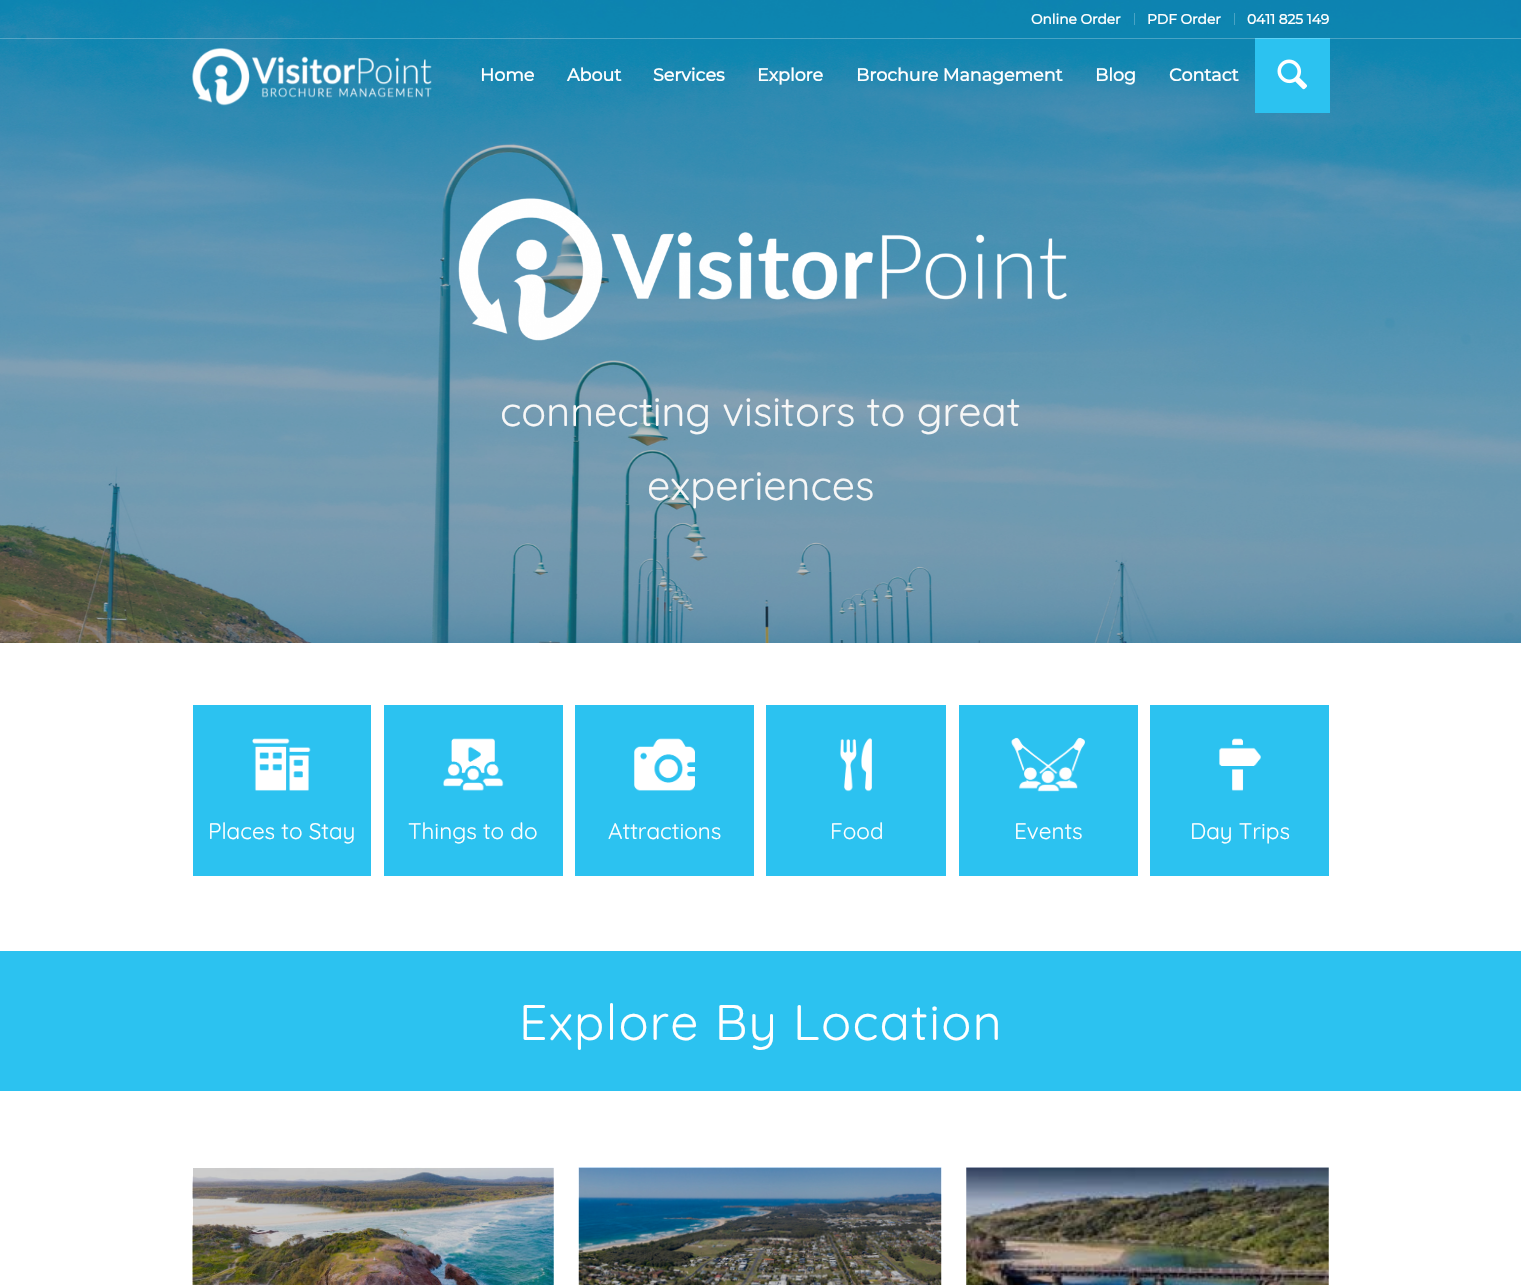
#include "include/core/SkBlurTypes.h"
#include "include/core/SkCanvas.h"
#include "include/core/SkData.h"
#include "include/core/SkFont.h"
#include "include/core/SkFontMgr.h"
#include "include/core/SkImage.h"
#include "include/core/SkMaskFilter.h"
#include "include/core/SkPaint.h"
#include "include/core/SkPathBuilder.h"
#include "include/core/SkTextBlob.h"
#include "include/effects/SkDashPathEffect.h"
#include "include/effects/SkGradientShader.h"
#include "include/utils/SkParsePath.h"

extern sk_sp<SkFontMgr> fontMgr;

void draw(SkCanvas* canvas) {
  SkPaint p;
  p.setAntiAlias(true);
  auto spacedText = [&](const char* s, float x, float y, const SkFont& font, const SkPaint& ink, float letter, float word) {
    std::vector<SkGlyphID> glyphs(font.countText(s, strlen(s), SkTextEncoding::kUTF8));
    std::vector<float> xs(glyphs.size());
    font.textToGlyphs(s, strlen(s), SkTextEncoding::kUTF8, glyphs);
    font.getXPos(glyphs, xs, x);
    float extra = 0;
    for (size_t i = 0; i < glyphs.size(); i++) {
      xs[i] += extra;
      extra += letter + word * (glyphs[i] == font.unicharToGlyph(' '));
    }
    canvas->drawTextBlob(SkTextBlob::MakeFromPosHGlyphs(glyphs, xs, y, font), 0, 0, ink);
  };
  canvas->clear(SK_ColorWHITE);
  canvas->drawImageRect(SkImages::DeferredFromEncodedData(SkData::MakeFromFileName("images/3.png")), SkRect::MakeLTRB(0, 0, 1521, 643), SkSamplingOptions());
  p.setColor(SkColorSetRGB(44, 194, 240));
  canvas->drawRect(SkRect::MakeLTRB(1255, 38, 1330, 113), p);
  p.setColor(SkColorSetARGB(64, 255, 255, 255));
  canvas->drawRect(SkRect::MakeLTRB(0, 38, 1521, 39), p);
  p.setColor(SkColorSetRGB(73, 163, 196));
  canvas->drawRect(SkRect::MakeLTRB(1134, 13, 1135, 25), p);
  canvas->drawRect(SkRect::MakeLTRB(1234, 13, 1235, 25), p);
  canvas->drawImageRect(SkImages::DeferredFromEncodedData(SkData::MakeFromFileName("images/1.png")), SkRect::MakeLTRB(192, 48, 432, 106), SkSamplingOptions());
  canvas->drawImageRect(SkImages::DeferredFromEncodedData(SkData::MakeFromFileName("images/2.png")), SkRect::MakeLTRB(1277, 59, 1307, 90), SkSamplingOptions());
  canvas->drawImageRect(SkImages::DeferredFromEncodedData(SkData::MakeFromFileName("images/4.png")), SkRect::MakeLTRB(458, 198, 1067, 341), SkSamplingOptions());
  p.setColor(SkColorSetRGB(44, 194, 240));
  canvas->drawRect(SkRect::MakeLTRB(193, 705, 371, 876), p);
  canvas->drawImageRect(SkImages::DeferredFromEncodedData(SkData::MakeFromFileName("images/5.png")), SkRect::MakeLTRB(252, 738, 311, 791), SkSamplingOptions());
  canvas->drawRect(SkRect::MakeLTRB(384, 705, 563, 876), p);
  canvas->drawImageRect(SkImages::DeferredFromEncodedData(SkData::MakeFromFileName("images/6.png")), SkRect::MakeLTRB(443, 738, 504, 791), SkSamplingOptions());
  canvas->drawRect(SkRect::MakeLTRB(575, 705, 754, 876), p);
  canvas->drawImageRect(SkImages::DeferredFromEncodedData(SkData::MakeFromFileName("images/7.png")), SkRect::MakeLTRB(634, 738, 695, 791), SkSamplingOptions());
  canvas->drawRect(SkRect::MakeLTRB(766, 705, 946, 876), p);
  canvas->drawImageRect(SkImages::DeferredFromEncodedData(SkData::MakeFromFileName("images/8.png")), SkRect::MakeLTRB(840, 738, 872, 792), SkSamplingOptions());
  canvas->drawRect(SkRect::MakeLTRB(959, 705, 1138, 876), p);
  canvas->drawImageRect(SkImages::DeferredFromEncodedData(SkData::MakeFromFileName("images/9.png")), SkRect::MakeLTRB(1011, 737, 1085, 792), SkSamplingOptions());
  canvas->drawRect(SkRect::MakeLTRB(1150, 705, 1329, 876), p);
  canvas->drawImageRect(SkImages::DeferredFromEncodedData(SkData::MakeFromFileName("images/10.png")), SkRect::MakeLTRB(1219, 738, 1261, 791), SkSamplingOptions());
  canvas->drawRect(SkRect::MakeLTRB(0, 951, 1521, 1091), p);
  canvas->drawImageRect(SkImages::DeferredFromEncodedData(SkData::MakeFromFileName("images/11.png")), SkRect::MakeLTRB(192, 1167, 554, 1285), SkSamplingOptions());
  canvas->drawImageRect(SkImages::DeferredFromEncodedData(SkData::MakeFromFileName("images/12.png")), SkRect::MakeLTRB(578, 1167, 942, 1285), SkSamplingOptions());
  canvas->drawImageRect(SkImages::DeferredFromEncodedData(SkData::MakeFromFileName("images/13.png")), SkRect::MakeLTRB(966, 1167, 1329, 1285), SkSamplingOptions());
  SkFont font1(fontMgr->matchFamilyStyle("Montserrat", SkFontStyle::Bold()), 13.75f);
  font1.setSubpixel(true);
  p.setColor(SK_ColorWHITE);
  canvas->drawString("Online Order", 1031, 24, font1, p);
  canvas->drawString("PDF Order", 1147, 24, font1, p);
  canvas->drawString("0411 825 149", 1247, 24, font1, p);
  SkFont font2(fontMgr->matchFamilyStyle("Montserrat", SkFontStyle::Bold()), 17.5f);
  font2.setSubpixel(true);
  canvas->drawString("Home", 480, 81, font2, p);
  canvas->drawString("About", 567, 81, font2, p);
  canvas->drawString("Services", 653, 81, font2, p);
  canvas->drawString("Explore", 757, 81, font2, p);
  canvas->drawString("Brochure Management", 856, 81, font2, p);
  canvas->drawString("Blog", 1095, 81, font2, p);
  canvas->drawString("Contact", 1169, 81, font2, p);
  SkFont font3(fontMgr->matchFamilyStyle("Quicksand", SkFontStyle(300, SkFontStyle::kNormal_Width, SkFontStyle::kUpright_Slant)), 41.25f);
  font3.setSubpixel(true);
  p.setColor(SkColorSetRGB(247, 247, 247));
  canvas->drawString("connecting visitors to great", 500, 426, font3, p);
  canvas->drawString("experiences", 647, 500, font3, p);
  SkFont font4(fontMgr->matchFamilyStyle("Quicksand", SkFontStyle(300, SkFontStyle::kNormal_Width, SkFontStyle::kUpright_Slant)), 22.5f);
  font4.setSubpixel(true);
  p.setColor(SK_ColorWHITE);
  canvas->drawString("Places to Stay", 208, 839, font4, p);
  canvas->drawString("Things to do", 408, 839, font4, p);
  canvas->drawString("Attractions", 608, 839, font4, p);
  canvas->drawString("Food", 830, 839, font4, p);
  canvas->drawString("Events", 1014, 839, font4, p);
  canvas->drawString("Day Trips", 1190, 839, font4, p);
  SkFont font5(fontMgr->matchFamilyStyle("Quicksand", SkFontStyle(300, SkFontStyle::kNormal_Width, SkFontStyle::kUpright_Slant)), 50);
  font5.setSubpixel(true);
  spacedText("Explore By Location", 519, 1040, font5, p, 1.25f, 0);
}
